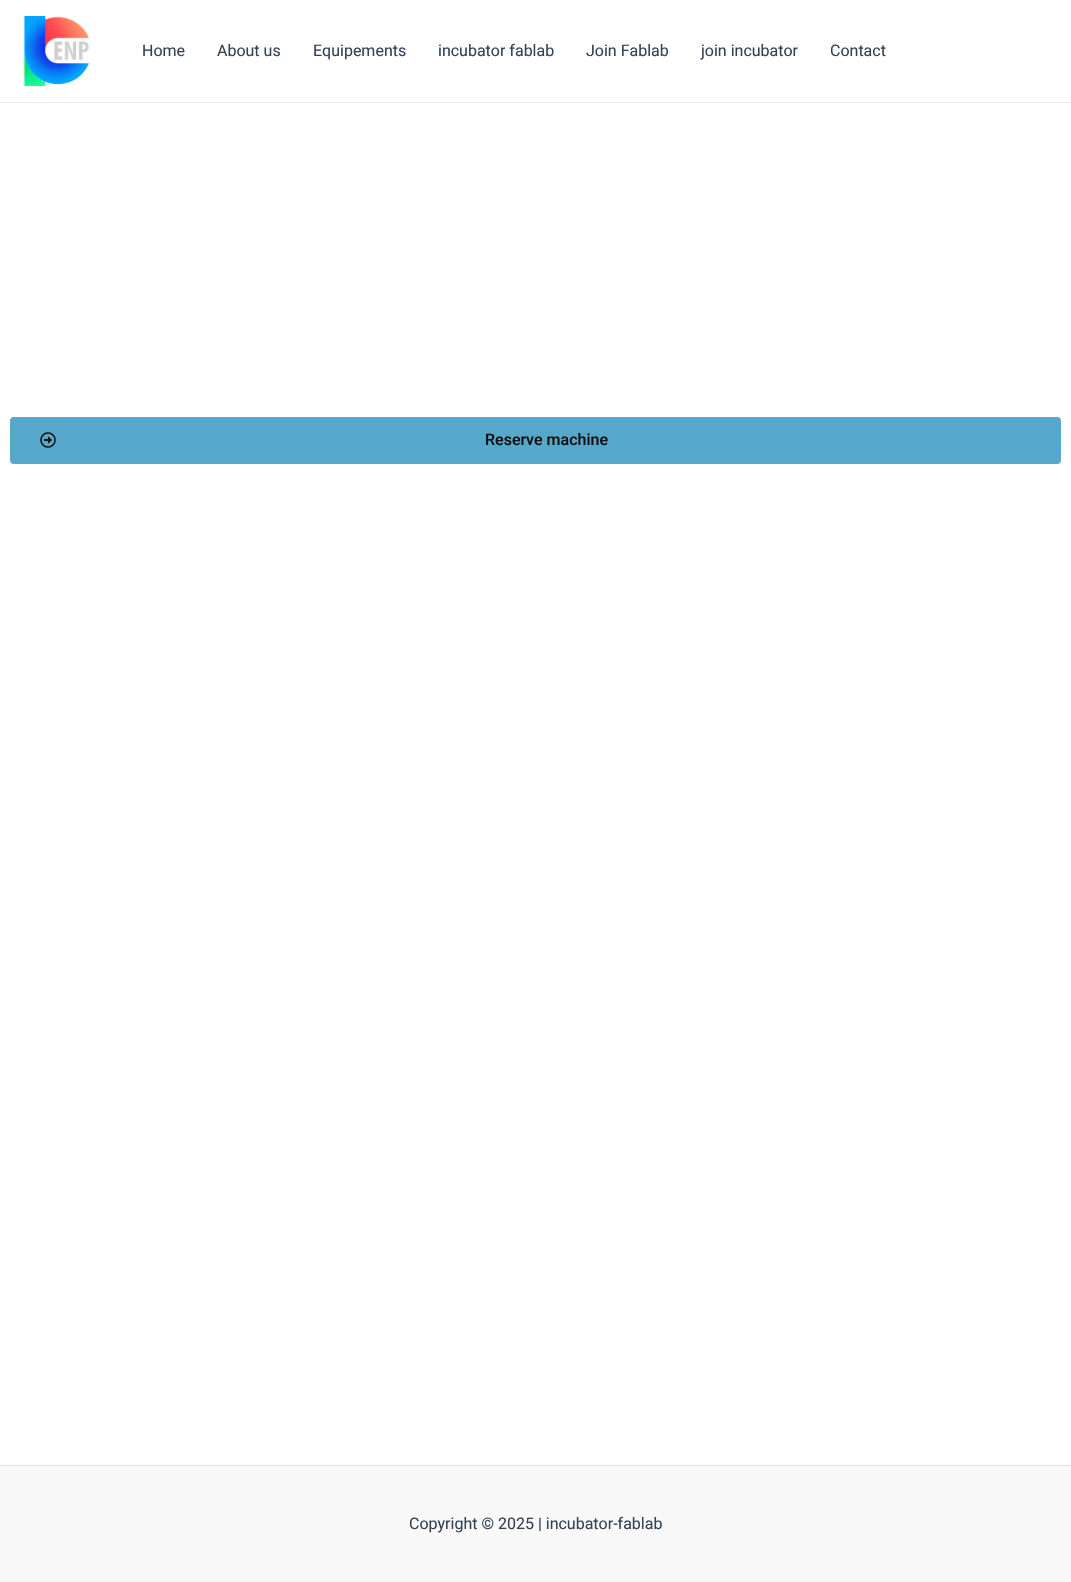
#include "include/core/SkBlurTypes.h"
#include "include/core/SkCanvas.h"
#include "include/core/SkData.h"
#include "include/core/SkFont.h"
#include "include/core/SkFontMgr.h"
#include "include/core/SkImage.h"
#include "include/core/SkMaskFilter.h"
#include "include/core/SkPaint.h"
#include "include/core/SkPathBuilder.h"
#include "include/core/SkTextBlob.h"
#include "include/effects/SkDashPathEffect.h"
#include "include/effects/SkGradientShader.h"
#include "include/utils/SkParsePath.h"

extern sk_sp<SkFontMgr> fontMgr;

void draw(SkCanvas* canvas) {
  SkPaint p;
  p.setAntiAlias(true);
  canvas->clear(SK_ColorWHITE);
  p.setColor(SkColorSetRGB(234, 234, 234));
  canvas->drawRect(SkRect::MakeLTRB(0, 102, 1071, 103), p);
  canvas->drawImageRect(SkImages::DeferredFromEncodedData(SkData::MakeFromFileName("images/1.png")), SkRect::MakeLTRB(23, 16, 90, 86), SkSamplingOptions());
  p.setColor(SkColorSetRGB(87, 167, 203));
  canvas->drawRoundRect(SkRect::MakeLTRB(10, 417, 1061, 464), 4, 4, p);
  canvas->drawImageRect(SkImages::DeferredFromEncodedData(SkData::MakeFromFileName("images/2.png")), SkRect::MakeLTRB(40, 432, 56, 448), SkSamplingOptions());
  p.setColor(SkColorSetRGB(249, 249, 249));
  canvas->drawRect(SkRect::MakeLTRB(0, 1466, 1071, 1582), p);
  p.setColor(SkColorSetRGB(230, 230, 230));
  canvas->drawRect(SkRect::MakeLTRB(0, 1465, 1071, 1466), p);
  SkFont font1(fontMgr->matchFamilyStyle("Roboto", SkFontStyle::Normal()), 16);
  font1.setSubpixel(true);
  p.setColor(SkColorSetRGB(51, 65, 85));
  canvas->drawString("Home", 142, 56, font1, p);
  canvas->drawString("About us", 217, 56, font1, p);
  canvas->drawString("Equipements", 313, 56, font1, p);
  canvas->drawString("incubator fablab", 438, 56, font1, p);
  canvas->drawString("Join Fablab", 586, 56, font1, p);
  canvas->drawString("join incubator", 701, 56, font1, p);
  canvas->drawString("Contact", 830, 56, font1, p);
  SkFont font2(fontMgr->matchFamilyStyle("Roboto", SkFontStyle(500, SkFontStyle::kNormal_Width, SkFontStyle::kUpright_Slant)), 16);
  font2.setSubpixel(true);
  p.setColor(SkColorSetRGB(18, 17, 17));
  canvas->drawString("Reserve machine", 485, 445, font2, p);
  p.setColor(SkColorSetRGB(51, 65, 85));
  canvas->drawString("Copyright © 2025 | incubator-fablab", 409, 1529, font1, p);
}
